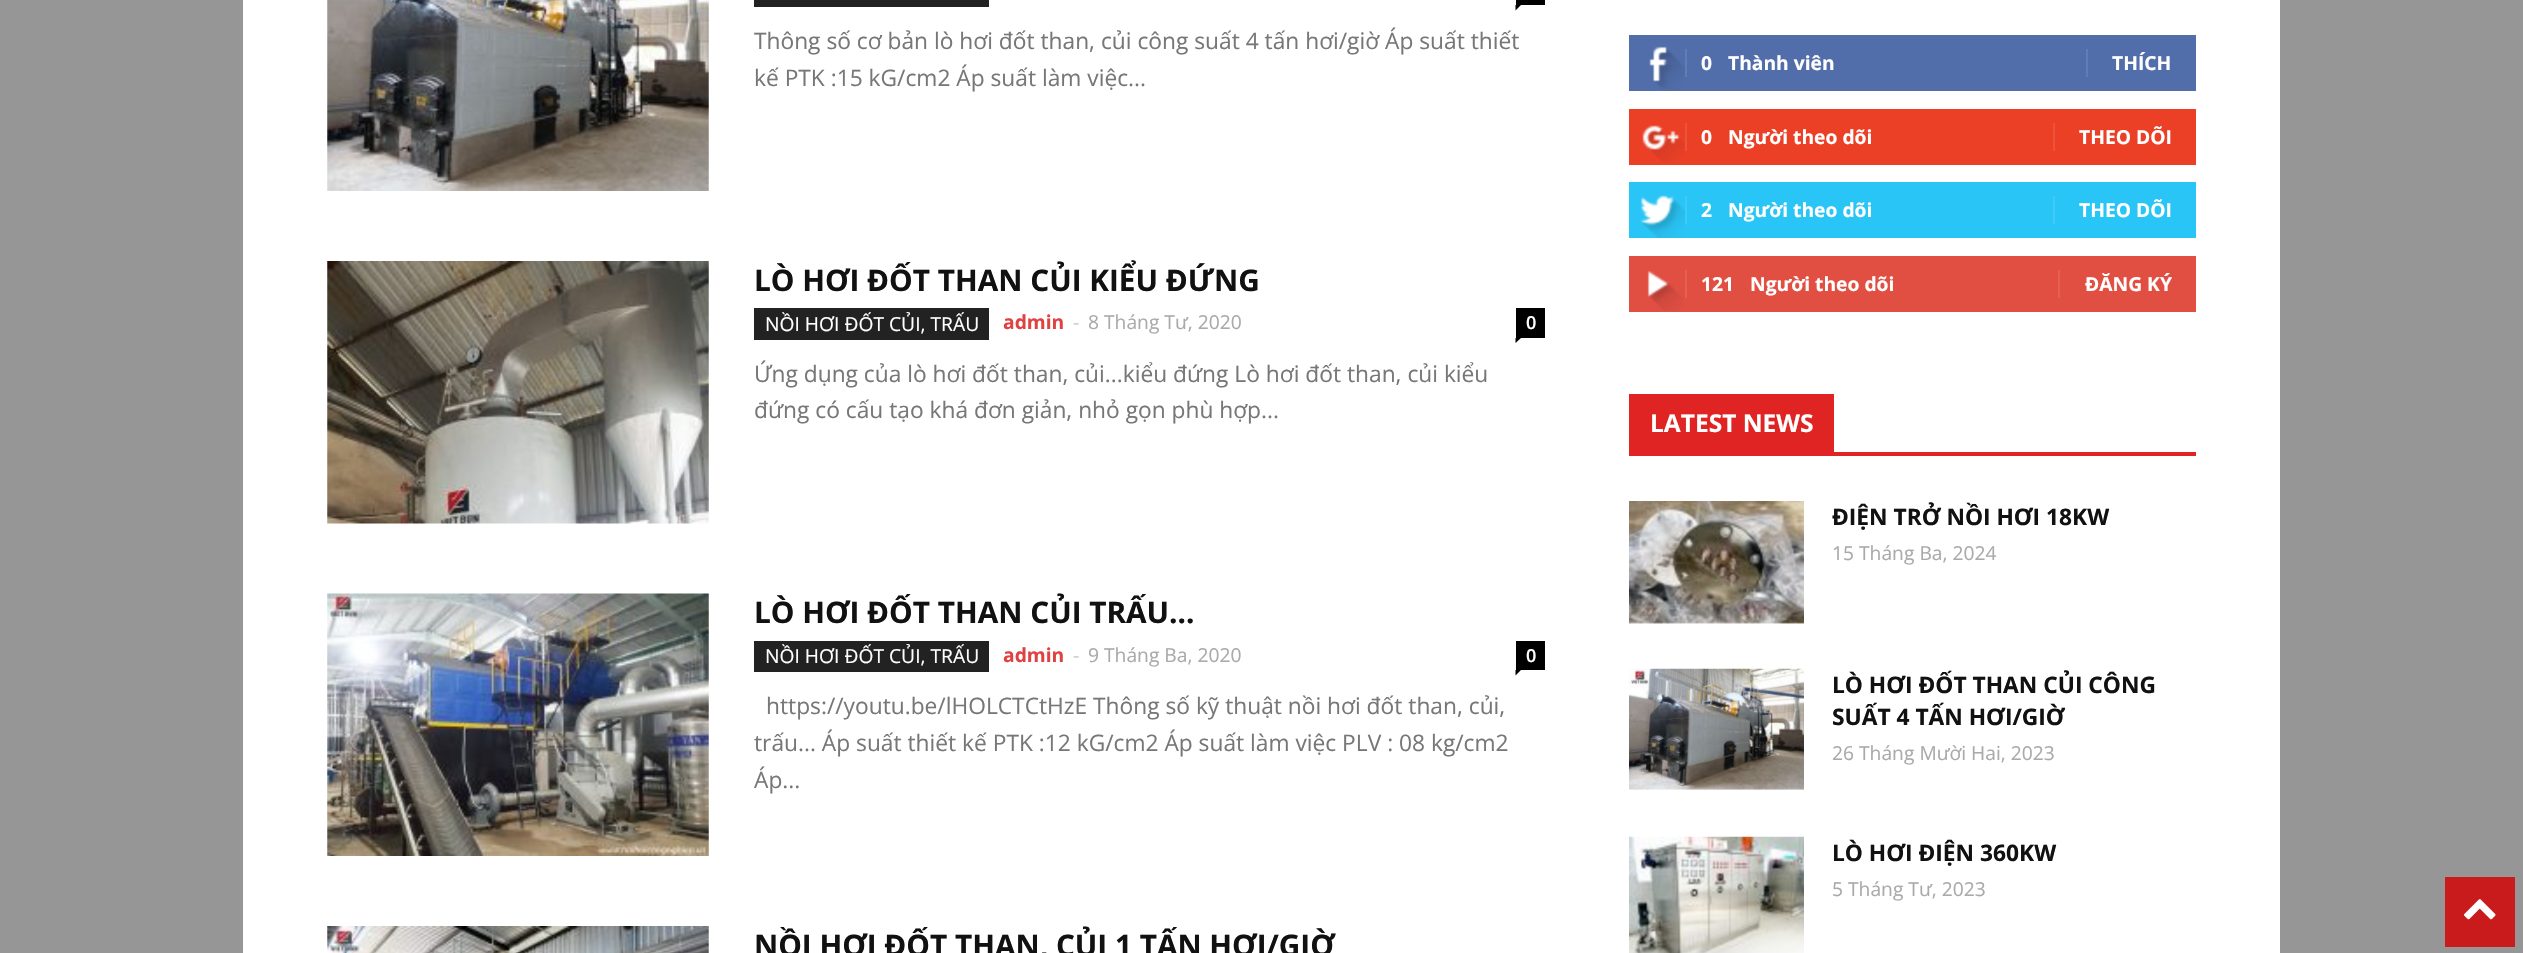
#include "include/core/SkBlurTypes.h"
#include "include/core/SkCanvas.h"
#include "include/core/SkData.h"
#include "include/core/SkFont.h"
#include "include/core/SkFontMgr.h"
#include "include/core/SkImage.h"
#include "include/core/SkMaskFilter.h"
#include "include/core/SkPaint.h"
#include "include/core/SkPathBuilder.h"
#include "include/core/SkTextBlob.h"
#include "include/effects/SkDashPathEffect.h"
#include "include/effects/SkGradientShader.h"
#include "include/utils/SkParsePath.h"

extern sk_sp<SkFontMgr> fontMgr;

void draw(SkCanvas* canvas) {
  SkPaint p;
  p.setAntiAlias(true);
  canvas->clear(SkColorSetRGB(150, 150, 150));
  p.setColor(SK_ColorWHITE);
  canvas->drawRect(SkRect::MakeLTRB(243, 0, 2280, 953), p);
  canvas->drawImageRect(SkImages::DeferredFromEncodedData(SkData::MakeFromFileName("images/1.png")), SkRect::MakeLTRB(327, 0, 709, 191), SkSamplingOptions());
  p.setColor(SkColorSetRGB(34, 34, 34));
  canvas->drawRect(SkRect::MakeLTRB(754, 0, 989, 7), p);
  p.setColor(SK_ColorBLACK);
  canvas->drawRect(SkRect::MakeLTRB(1516, 0, 1545, 5), p);
  canvas->drawPath(SkPathBuilder().moveTo(1515.5f, 5).lineTo(1521, 5).lineTo(1515.5f, 10.5f).close().detach(), p);
  canvas->drawImageRect(SkImages::DeferredFromEncodedData(SkData::MakeFromFileName("images/2.png")), SkRect::MakeLTRB(327, 261, 709, 524), SkSamplingOptions());
  p.setColor(SkColorSetRGB(34, 34, 34));
  canvas->drawRect(SkRect::MakeLTRB(754, 308, 989, 340), p);
  p.setColor(SK_ColorBLACK);
  canvas->drawRect(SkRect::MakeLTRB(1516, 308, 1545, 338), p);
  canvas->drawPath(SkPathBuilder().moveTo(1515.5f, 338).lineTo(1521, 338).lineTo(1515.5f, 343).close().detach(), p);
  canvas->drawImageRect(SkImages::DeferredFromEncodedData(SkData::MakeFromFileName("images/3.png")), SkRect::MakeLTRB(327, 593, 709, 856), SkSamplingOptions());
  p.setColor(SkColorSetRGB(34, 34, 34));
  canvas->drawRect(SkRect::MakeLTRB(754, 641, 989, 672), p);
  p.setColor(SK_ColorBLACK);
  canvas->drawRect(SkRect::MakeLTRB(1516, 641, 1545, 670), p);
  canvas->drawPath(SkPathBuilder().moveTo(1515.5f, 670).lineTo(1521, 670).lineTo(1515.5f, 675.5f).close().detach(), p);
  canvas->drawImageRect(SkImages::DeferredFromEncodedData(SkData::MakeFromFileName("images/4.png")), SkRect::MakeLTRB(327, 926, 709, 953), SkSamplingOptions());
  p.setColor(SkColorSetRGB(81, 110, 171));
  canvas->drawRect(SkRect::MakeLTRB(1629, 35, 2196, 91), p);
  canvas->drawImageRect(SkImages::DeferredFromEncodedData(SkData::MakeFromFileName("images/5.png")), SkRect::MakeLTRB(1649, 46, 1685, 91), SkSamplingOptions());
  p.setColor(SkColorSetRGB(98, 125, 179));
  canvas->drawRect(SkRect::MakeLTRB(1685, 49, 1687, 77), p);
  canvas->drawRect(SkRect::MakeLTRB(2086, 49, 2088, 77), p);
  p.setColor(SkColorSetRGB(235, 64, 38));
  canvas->drawRect(SkRect::MakeLTRB(1629, 109, 2196, 165), p);
  canvas->drawImageRect(SkImages::DeferredFromEncodedData(SkData::MakeFromFileName("images/6.png")), SkRect::MakeLTRB(1642, 125, 1685, 163), SkSamplingOptions());
  p.setColor(SkColorSetRGB(237, 83, 60));
  canvas->drawRect(SkRect::MakeLTRB(1685, 123, 1687, 151), p);
  canvas->drawRect(SkRect::MakeLTRB(2053, 123, 2055, 151), p);
  p.setColor(SkColorSetRGB(41, 197, 246));
  canvas->drawRect(SkRect::MakeLTRB(1629, 182, 2196, 238), p);
  canvas->drawImageRect(SkImages::DeferredFromEncodedData(SkData::MakeFromFileName("images/7.png")), SkRect::MakeLTRB(1640, 195, 1685, 238), SkSamplingOptions());
  p.setColor(SkColorSetRGB(62, 203, 247));
  canvas->drawRect(SkRect::MakeLTRB(1685, 196, 1687, 224), p);
  canvas->drawRect(SkRect::MakeLTRB(2053, 196, 2055, 224), p);
  p.setColor(SkColorSetRGB(225, 78, 66));
  canvas->drawRect(SkRect::MakeLTRB(1629, 256, 2196, 312), p);
  canvas->drawImageRect(SkImages::DeferredFromEncodedData(SkData::MakeFromFileName("images/8.png")), SkRect::MakeLTRB(1647, 270, 1683, 311), SkSamplingOptions());
  p.setColor(SkColorSetRGB(228, 96, 85));
  canvas->drawRect(SkRect::MakeLTRB(1685, 270, 1687, 298), p);
  canvas->drawRect(SkRect::MakeLTRB(2058, 270, 2060, 298), p);
  p.setColor(SkColorSetRGB(224, 35, 35));
  canvas->drawRect(SkRect::MakeLTRB(1629, 452, 2196, 456), p);
  canvas->drawRect(SkRect::MakeLTRB(1629, 394, 1834, 452), p);
  canvas->drawImageRect(SkImages::DeferredFromEncodedData(SkData::MakeFromFileName("images/9.png")), SkRect::MakeLTRB(1629, 501, 1804, 624), SkSamplingOptions());
  canvas->drawImageRect(SkImages::DeferredFromEncodedData(SkData::MakeFromFileName("images/10.png")), SkRect::MakeLTRB(1629, 668, 1804, 790), SkSamplingOptions());
  canvas->drawImageRect(SkImages::DeferredFromEncodedData(SkData::MakeFromFileName("images/11.png")), SkRect::MakeLTRB(1629, 836, 1804, 953), SkSamplingOptions());
  p.setColor(SkColorSetRGB(201, 27, 27));
  canvas->drawRect(SkRect::MakeLTRB(2445, 877, 2515, 947), p);
  canvas->drawImageRect(SkImages::DeferredFromEncodedData(SkData::MakeFromFileName("images/12.png")), SkRect::MakeLTRB(2464, 899, 2496, 920), SkSamplingOptions());
  SkFont font1(fontMgr->matchFamilyStyle("Open Sans", SkFontStyle::Normal()), 22.75f);
  font1.setSubpixel(true);
  p.setColor(SkColorSetRGB(119, 119, 119));
  canvas->drawString("Thông số cơ bản lò hơi đốt than, củi công suất 4 tấn hơi/giờ Áp suất thiết", 754, 49, font1, p);
  canvas->drawString("kế PTK :15 kG/cm2 Áp suất làm việc...", 754, 86, font1, p);
  SkFont font2(fontMgr->matchFamilyStyle("Open Sans", SkFontStyle::Bold()), 29.75f);
  font2.setSubpixel(true);
  p.setColor(SkColorSetRGB(17, 17, 17));
  canvas->drawString("LÒ HƠI ĐỐT THAN CỦI KIỂU ĐỨNG", 754, 291, font2, p);
  SkFont font3(fontMgr->matchFamilyStyle("Open Sans", SkFontStyle::Normal()), 19.25f);
  font3.setSubpixel(true);
  p.setColor(SK_ColorWHITE);
  canvas->drawString("NỒI HƠI ĐỐT CỦI, TRẤU", 765, 331, font3, p);
  SkFont font4(fontMgr->matchFamilyStyle("Open Sans", SkFontStyle::Bold()), 19.25f);
  font4.setSubpixel(true);
  p.setColor(SkColorSetRGB(224, 65, 65));
  canvas->drawString("admin", 1003, 329, font4, p);
  p.setColor(SkColorSetRGB(204, 204, 204));
  canvas->drawString("-", 1073, 329, font3, p);
  p.setColor(SkColorSetRGB(170, 170, 170));
  canvas->drawString("8 Tháng Tư, 2020", 1088, 329, font3, p);
  SkFont font5(fontMgr->matchFamilyStyle("Open Sans", SkFontStyle(600, SkFontStyle::kNormal_Width, SkFontStyle::kUpright_Slant)), 18);
  font5.setSubpixel(true);
  p.setColor(SK_ColorWHITE);
  canvas->drawString("0", 1526, 329, font5, p);
  p.setColor(SkColorSetRGB(119, 119, 119));
  canvas->drawString("Ứng dụng của lò hơi đốt than, củi...kiểu đứng Lò hơi đốt than, củi kiểu", 754, 382, font1, p);
  canvas->drawString("đứng có cấu tạo khá đơn giản, nhỏ gọn phù hợp...", 754, 418, font1, p);
  p.setColor(SkColorSetRGB(17, 17, 17));
  canvas->drawString("LÒ HƠI ĐỐT THAN CỦI TRẤU…", 754, 623, font2, p);
  p.setColor(SK_ColorWHITE);
  canvas->drawString("NỒI HƠI ĐỐT CỦI, TRẤU", 765, 663, font3, p);
  p.setColor(SkColorSetRGB(224, 65, 65));
  canvas->drawString("admin", 1003, 662, font4, p);
  p.setColor(SkColorSetRGB(204, 204, 204));
  canvas->drawString("-", 1073, 662, font3, p);
  p.setColor(SkColorSetRGB(170, 170, 170));
  canvas->drawString("9 Tháng Ba, 2020", 1088, 662, font3, p);
  p.setColor(SK_ColorWHITE);
  canvas->drawString("0", 1526, 662, font5, p);
  p.setColor(SkColorSetRGB(119, 119, 119));
  canvas->drawString("https://youtu.be/lHOLCTCtHzE Thông số kỹ thuật nồi hơi đốt than, củi,", 766, 714, font1, p);
  canvas->drawString("trấu... Áp suất thiết kế PTK :12 kG/cm2 Áp suất làm việc PLV : 08 kg/cm2", 754, 751, font1, p);
  canvas->drawString("Áp...", 754, 788, font1, p);
  p.setColor(SkColorSetRGB(17, 17, 17));
  canvas->drawString("NỒI HƠI ĐỐT THAN, CỦI 1 TẤN HƠI/GIỜ", 754, 956, font2, p);
  p.setColor(SK_ColorWHITE);
  canvas->drawString("0", 1701, 70, font4, p);
  canvas->drawString("Thành viên", 1728, 70, font4, p);
  canvas->drawString("THÍCH", 2112, 70, font4, p);
  canvas->drawString("0", 1701, 144, font4, p);
  canvas->drawString("Người theo dõi", 1728, 144, font4, p);
  canvas->drawString("THEO DÕI", 2079, 144, font4, p);
  canvas->drawString("2", 1701, 217, font4, p);
  canvas->drawString("Người theo dõi", 1728, 217, font4, p);
  canvas->drawString("THEO DÕI", 2079, 217, font4, p);
  canvas->drawString("121", 1701, 291, font4, p);
  canvas->drawString("Người theo dõi", 1750, 291, font4, p);
  canvas->drawString("ĐĂNG KÝ", 2085, 291, font4, p);
  SkFont font6(fontMgr->matchFamilyStyle("Open Sans", SkFontStyle::Bold()), 24.5f);
  font6.setSubpixel(true);
  canvas->drawString("LATEST NEWS", 1650, 432, font6, p);
  SkFont font7(fontMgr->matchFamilyStyle("Open Sans", SkFontStyle::Bold()), 22.75f);
  font7.setSubpixel(true);
  p.setColor(SkColorSetRGB(17, 17, 17));
  canvas->drawString("ĐIỆN TRỞ NỒI HƠI 18KW", 1832, 525, font7, p);
  p.setColor(SkColorSetRGB(170, 170, 170));
  canvas->drawString("15 Tháng Ba, 2024", 1832, 560, font3, p);
  p.setColor(SkColorSetRGB(17, 17, 17));
  canvas->drawString("LÒ HƠI ĐỐT THAN CỦI CÔNG", 1832, 693, font7, p);
  canvas->drawString("SUẤT 4 TẤN HƠI/GIỜ", 1832, 725, font7, p);
  p.setColor(SkColorSetRGB(170, 170, 170));
  canvas->drawString("26 Tháng Mười Hai, 2023", 1832, 760, font3, p);
  p.setColor(SkColorSetRGB(17, 17, 17));
  canvas->drawString("LÒ HƠI ĐIỆN 360KW", 1832, 861, font7, p);
  p.setColor(SkColorSetRGB(170, 170, 170));
  canvas->drawString("5 Tháng Tư, 2023", 1832, 896, font3, p);
}
